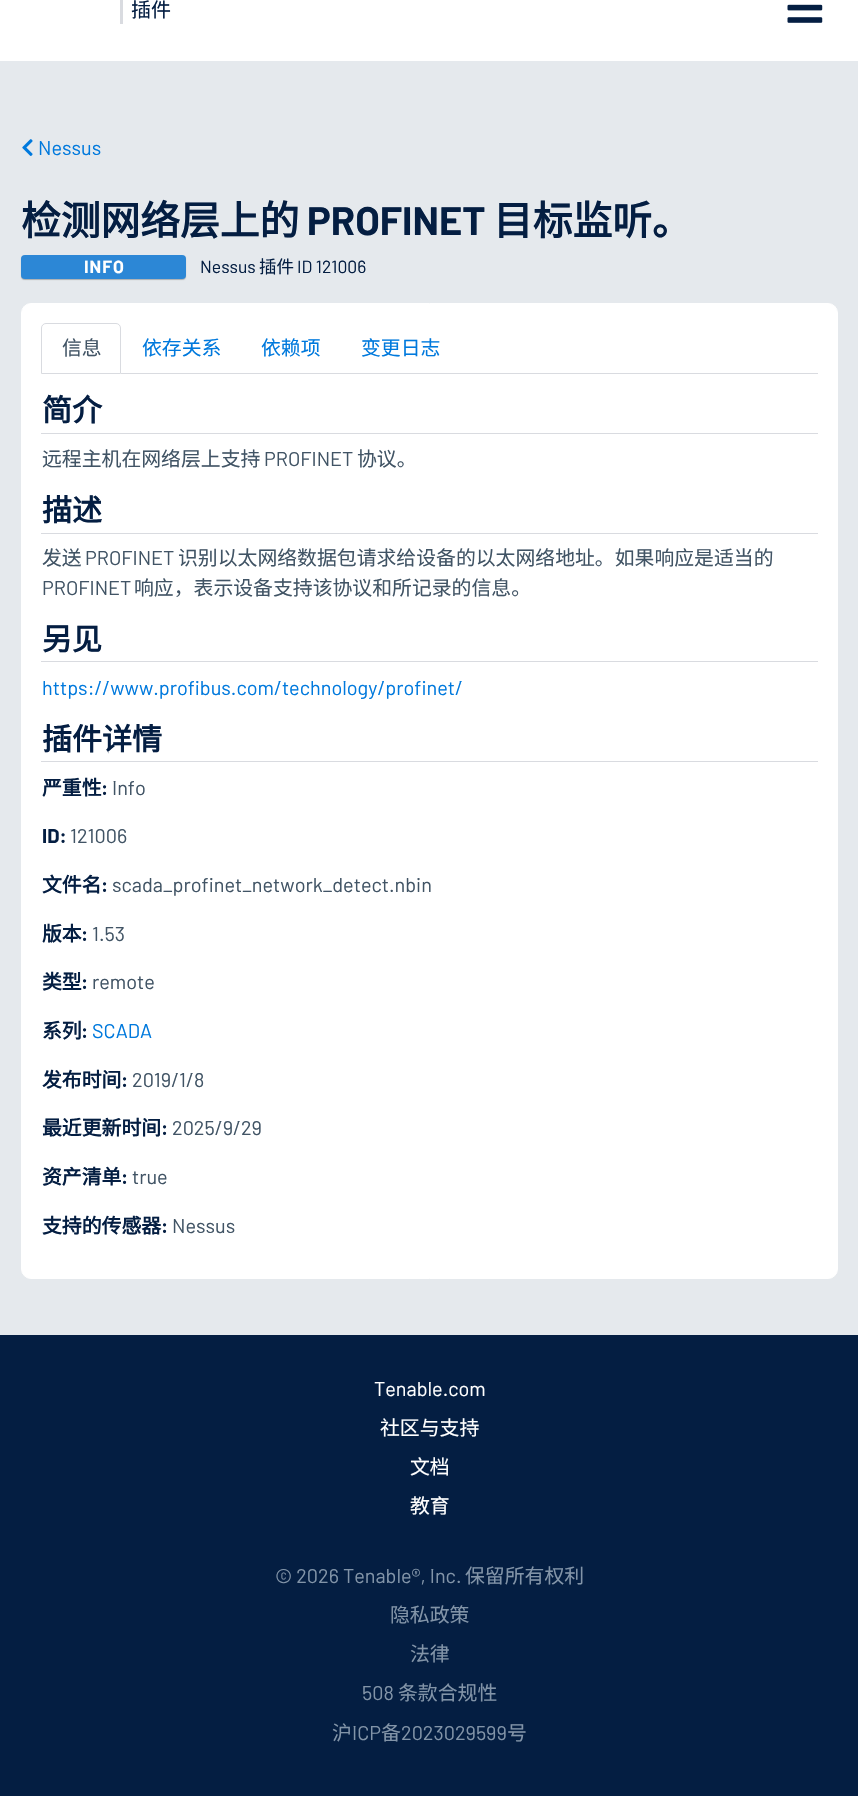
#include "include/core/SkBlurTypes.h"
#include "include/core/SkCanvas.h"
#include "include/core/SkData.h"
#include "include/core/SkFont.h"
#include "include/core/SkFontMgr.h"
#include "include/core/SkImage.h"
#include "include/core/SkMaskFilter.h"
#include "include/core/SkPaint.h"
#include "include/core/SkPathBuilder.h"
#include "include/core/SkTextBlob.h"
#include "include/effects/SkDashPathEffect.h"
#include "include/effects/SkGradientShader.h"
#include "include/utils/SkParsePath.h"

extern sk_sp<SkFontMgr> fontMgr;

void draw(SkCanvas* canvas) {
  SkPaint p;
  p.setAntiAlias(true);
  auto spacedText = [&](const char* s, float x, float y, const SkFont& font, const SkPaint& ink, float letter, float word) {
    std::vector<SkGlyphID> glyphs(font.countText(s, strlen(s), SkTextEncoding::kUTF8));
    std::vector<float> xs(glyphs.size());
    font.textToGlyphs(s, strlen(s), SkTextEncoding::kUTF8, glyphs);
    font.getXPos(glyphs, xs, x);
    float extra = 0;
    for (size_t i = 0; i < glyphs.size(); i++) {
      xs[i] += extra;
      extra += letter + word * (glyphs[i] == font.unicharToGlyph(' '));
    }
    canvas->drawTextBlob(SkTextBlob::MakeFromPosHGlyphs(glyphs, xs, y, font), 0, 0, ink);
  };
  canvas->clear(SK_ColorWHITE);
  p.setColor(SkColorSetRGB(217, 219, 224));
  canvas->drawRect(SkRect::MakeLTRB(120, 0, 123, 24), p);
  canvas->drawImageRect(SkImages::DeferredFromEncodedData(SkData::MakeFromFileName("images/1.png")), SkRect::MakeLTRB(787, 4, 823, 23), SkSamplingOptions());
  p.setColor(SkColorSetRGB(229, 233, 237));
  canvas->drawRect(SkRect::MakeLTRB(0, 61, 858, 1335), p);
  canvas->drawImageRect(SkImages::DeferredFromEncodedData(SkData::MakeFromFileName("images/2.png")), SkRect::MakeLTRB(22, 139, 33, 156), SkSamplingOptions());
  p.setColor(SkColorSetARGB(64, 0, 0, 0));
  p.setMaskFilter(SkMaskFilter::MakeBlur(kNormal_SkBlurStyle, 0.5f));
  canvas->drawRoundRect(SkRect::MakeLTRB(21, 256, 186, 280), 4, 4, p);
  p.setMaskFilter(nullptr);
  p.setColor(SkColorSetRGB(44, 135, 214));
  canvas->drawRoundRect(SkRect::MakeLTRB(21, 255, 186, 279), 4, 4, p);
  p.setColor(SK_ColorWHITE);
  canvas->drawRoundRect(SkRect::MakeLTRB(21.5f, 303.5f, 837.5f, 1278.5f), 9.5f, 9.5f, p);
  p.setStyle(SkPaint::kStroke_Style);
  p.setStrokeWidth(1);
  canvas->drawRoundRect(SkRect::MakeLTRB(21.5f, 303.5f, 837.5f, 1278.5f), 9.5f, 9.5f, p);
  p.setStyle(SkPaint::kFill_Style);
  p.setColor(SkColorSetRGB(217, 219, 224));
  canvas->drawRect(SkRect::MakeLTRB(121, 373, 818, 374), p);
  p.setStyle(SkPaint::kStroke_Style);
  canvas->drawPath(SkPathBuilder().moveTo(46, 323.5f).lineTo(116, 323.5f).cubicTo(118.5f, 323.5f, 120.5f, 325.5f, 120.5f, 328).lineTo(120.5f, 373.5f).lineTo(41.5f, 373.5f).lineTo(41.5f, 328).cubicTo(41.5f, 325.5f, 43.5f, 323.5f, 46, 323.5f).close().detach(), p);
  p.setStyle(SkPaint::kFill_Style);
  canvas->drawRect(SkRect::MakeLTRB(41, 433, 818, 434), p);
  canvas->drawRect(SkRect::MakeLTRB(41, 533, 818, 534), p);
  canvas->drawRect(SkRect::MakeLTRB(41, 661, 818, 662), p);
  canvas->drawRect(SkRect::MakeLTRB(41, 761, 818, 762), p);
  p.setColor(SkColorSetRGB(4, 30, 66));
  canvas->drawRect(SkRect::MakeLTRB(0, 1335, 858, 1796), p);
  SkFont font1(fontMgr->matchFamilyStyle("Noto Sans CJK SC", SkFontStyle::Normal()), 20);
  font1.setSubpixel(true);
  canvas->drawString("插件", 131, 17, font1, p);
  SkFont font2(fontMgr->matchFamilyStyle("Barlow", SkFontStyle::Normal()), 19.85f);
  font2.setSubpixel(true);
  p.setColor(SkColorSetRGB(0, 121, 221));
  canvas->drawString("Nessus", 38, 155, font2, p);
  SkFont font3(fontMgr->matchFamilyStyle("Noto Sans CJK SC", SkFontStyle::Bold()), 39.75f);
  font3.setSubpixel(true);
  p.setColor(SkColorSetRGB(4, 30, 66));
  canvas->drawString("检测网络层上的", 21, 235, font3, p);
  SkFont font4(fontMgr->matchFamilyStyle("Barlow", SkFontStyle::Bold()), 39.75f);
  font4.setSubpixel(true);
  canvas->drawString("PROFINET", 307, 235, font4, p);
  canvas->drawString("目标监听。", 493, 235, font3, p);
  SkFont font5(fontMgr->matchFamilyStyle("Barlow", SkFontStyle::Bold()), 17.5f);
  font5.setSubpixel(true);
  p.setColor(SK_ColorWHITE);
  spacedText("INFO", 84, 273, font5, p, 1, 0);
  SkFont font6(fontMgr->matchFamilyStyle("Barlow", SkFontStyle::Normal()), 17.5f);
  font6.setSubpixel(true);
  p.setColor(SkColorSetRGB(4, 30, 66));
  canvas->drawString("Nessus", 200, 273, font6, p);
  SkFont font7(fontMgr->matchFamilyStyle("Noto Sans CJK SC", SkFontStyle::Normal()), 17.5f);
  font7.setSubpixel(true);
  canvas->drawString("插件", 259, 273, font7, p);
  canvas->drawString("ID 121006", 297, 273, font6, p);
  SkFont font8(fontMgr->matchFamilyStyle("Noto Sans CJK SC", SkFontStyle::Normal()), 19.85f);
  font8.setSubpixel(true);
  p.setColor(SkColorSetRGB(65, 84, 101));
  canvas->drawString("信息", 62, 355, font8, p);
  p.setColor(SkColorSetRGB(0, 121, 221));
  canvas->drawString("依存关系", 142, 355, font8, p);
  canvas->drawString("依赖项", 261, 355, font8, p);
  canvas->drawString("变更日志", 361, 355, font8, p);
  SkFont font9(fontMgr->matchFamilyStyle("Noto Sans CJK SC", SkFontStyle::Bold()), 30);
  font9.setSubpixel(true);
  p.setColor(SkColorSetRGB(4, 30, 66));
  canvas->drawString("简介", 42, 421, font9, p);
  p.setColor(SkColorSetRGB(65, 84, 101));
  canvas->drawString("远程主机在网络层上支持", 42, 466, font8, p);
  canvas->drawString("PROFINET", 264, 466, font2, p);
  canvas->drawString("协议。", 357, 466, font8, p);
  p.setColor(SkColorSetRGB(4, 30, 66));
  canvas->drawString("描述", 42, 521, font9, p);
  p.setColor(SkColorSetRGB(65, 84, 101));
  canvas->drawString("发送", 42, 565, font8, p);
  canvas->drawString("PROFINET", 85, 565, font2, p);
  canvas->drawString("识别以太网络数据包请求给设备的以太网络地址。如果响应是适当的", 178, 565, font8, p);
  canvas->drawString("PROFINET", 42, 595, font2, p);
  canvas->drawString("响应，表示设备支持该协议和所记录的信息。", 134, 595, font8, p);
  p.setColor(SkColorSetRGB(4, 30, 66));
  canvas->drawString("另见", 42, 650, font9, p);
  p.setColor(SkColorSetRGB(0, 121, 221));
  canvas->drawString("https://www.profibus.com/technology/profinet/", 42, 695, font2, p);
  p.setColor(SkColorSetRGB(4, 30, 66));
  canvas->drawString("插件详情", 42, 750, font9, p);
  SkFont font10(fontMgr->matchFamilyStyle("Noto Sans CJK SC", SkFontStyle::Bold()), 19.85f);
  font10.setSubpixel(true);
  canvas->drawString("严重性", 42, 795, font10, p);
  SkFont font11(fontMgr->matchFamilyStyle("Barlow", SkFontStyle::Bold()), 19.85f);
  font11.setSubpixel(true);
  canvas->drawString(":", 101, 795, font11, p);
  p.setColor(SkColorSetRGB(65, 84, 101));
  canvas->drawString("Info", 112, 795, font2, p);
  p.setColor(SkColorSetRGB(4, 30, 66));
  canvas->drawString("ID:", 42, 843, font11, p);
  p.setColor(SkColorSetRGB(65, 84, 101));
  canvas->drawString("121006", 70, 843, font2, p);
  p.setColor(SkColorSetRGB(4, 30, 66));
  canvas->drawString("文件名", 42, 892, font10, p);
  canvas->drawString(":", 101, 892, font11, p);
  p.setColor(SkColorSetRGB(65, 84, 101));
  canvas->drawString("scada_profinet_network_detect.nbin", 112, 892, font2, p);
  p.setColor(SkColorSetRGB(4, 30, 66));
  canvas->drawString("版本", 42, 941, font10, p);
  canvas->drawString(":", 81, 941, font11, p);
  p.setColor(SkColorSetRGB(65, 84, 101));
  canvas->drawString("1.53", 92, 941, font2, p);
  p.setColor(SkColorSetRGB(4, 30, 66));
  canvas->drawString("类型", 42, 989, font10, p);
  canvas->drawString(":", 81, 989, font11, p);
  p.setColor(SkColorSetRGB(65, 84, 101));
  canvas->drawString("remote", 92, 989, font2, p);
  p.setColor(SkColorSetRGB(4, 30, 66));
  canvas->drawString("系列", 42, 1038, font10, p);
  canvas->drawString(":", 81, 1038, font11, p);
  p.setColor(SkColorSetRGB(0, 121, 221));
  canvas->drawString("SCADA", 92, 1038, font2, p);
  p.setColor(SkColorSetRGB(4, 30, 66));
  canvas->drawString("发布时间", 42, 1087, font10, p);
  canvas->drawString(":", 121, 1087, font11, p);
  p.setColor(SkColorSetRGB(65, 84, 101));
  canvas->drawString("2019/1/8", 132, 1087, font2, p);
  p.setColor(SkColorSetRGB(4, 30, 66));
  canvas->drawString("最近更新时间", 42, 1135, font10, p);
  canvas->drawString(":", 161, 1135, font11, p);
  p.setColor(SkColorSetRGB(65, 84, 101));
  canvas->drawString("2025/9/29", 172, 1135, font2, p);
  p.setColor(SkColorSetRGB(4, 30, 66));
  canvas->drawString("资产清单", 42, 1184, font10, p);
  canvas->drawString(":", 121, 1184, font11, p);
  p.setColor(SkColorSetRGB(65, 84, 101));
  canvas->drawString("true", 132, 1184, font2, p);
  p.setColor(SkColorSetRGB(4, 30, 66));
  canvas->drawString("支持的传感器", 42, 1233, font10, p);
  canvas->drawString(":", 161, 1233, font11, p);
  p.setColor(SkColorSetRGB(65, 84, 101));
  canvas->drawString("Nessus", 172, 1233, font2, p);
  p.setColor(SK_ColorWHITE);
  canvas->drawString("Tenable.com", 374, 1396, font2, p);
  canvas->drawString("社区与支持", 380, 1435, font8, p);
  canvas->drawString("文档", 410, 1474, font8, p);
  canvas->drawString("教育", 410, 1513, font8, p);
  p.setColor(SkColorSetRGB(130, 148, 168));
  canvas->drawString("© 2026 Tenable®, Inc.", 275, 1583, font2, p);
  canvas->drawString("保留所有权利", 465, 1583, font8, p);
  canvas->drawString("隐私政策", 390, 1622, font8, p);
  canvas->drawString("法律", 410, 1661, font8, p);
  canvas->drawString("508", 362, 1700, font2, p);
  canvas->drawString("条款合规性", 398, 1700, font8, p);
  canvas->drawString("沪", 332, 1740, font8, p);
  canvas->drawString("ICP", 352, 1740, font2, p);
  canvas->drawString("备", 381, 1740, font8, p);
  canvas->drawString("2023029599", 401, 1740, font2, p);
  canvas->drawString("号", 507, 1740, font8, p);
}
